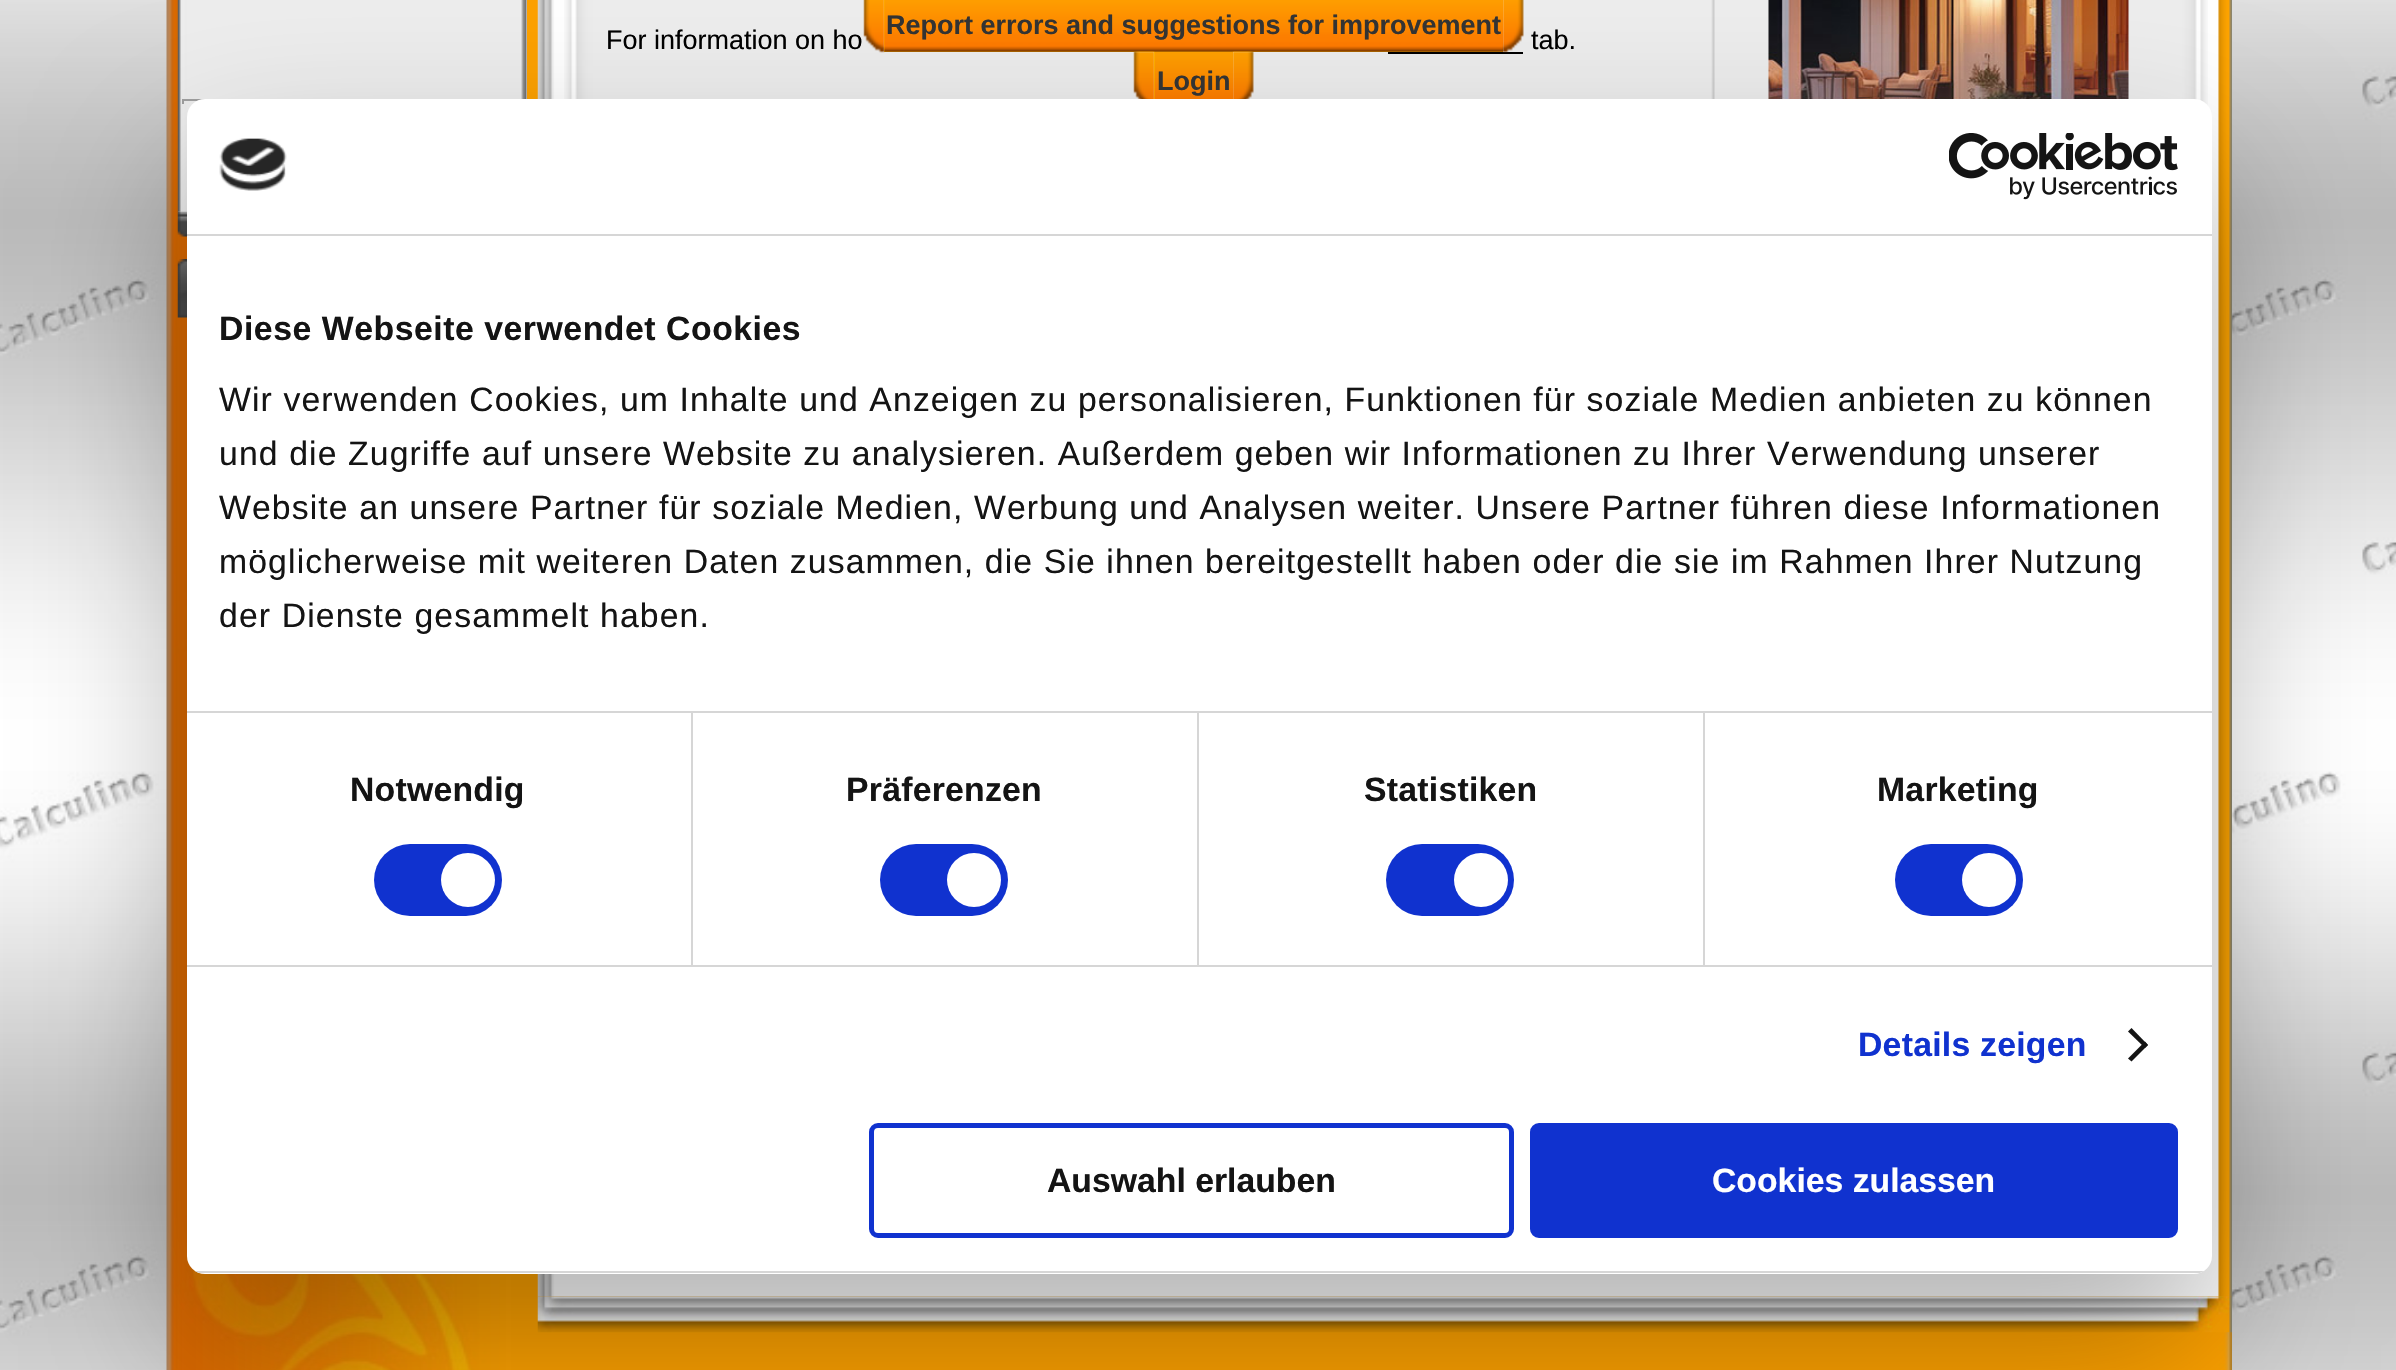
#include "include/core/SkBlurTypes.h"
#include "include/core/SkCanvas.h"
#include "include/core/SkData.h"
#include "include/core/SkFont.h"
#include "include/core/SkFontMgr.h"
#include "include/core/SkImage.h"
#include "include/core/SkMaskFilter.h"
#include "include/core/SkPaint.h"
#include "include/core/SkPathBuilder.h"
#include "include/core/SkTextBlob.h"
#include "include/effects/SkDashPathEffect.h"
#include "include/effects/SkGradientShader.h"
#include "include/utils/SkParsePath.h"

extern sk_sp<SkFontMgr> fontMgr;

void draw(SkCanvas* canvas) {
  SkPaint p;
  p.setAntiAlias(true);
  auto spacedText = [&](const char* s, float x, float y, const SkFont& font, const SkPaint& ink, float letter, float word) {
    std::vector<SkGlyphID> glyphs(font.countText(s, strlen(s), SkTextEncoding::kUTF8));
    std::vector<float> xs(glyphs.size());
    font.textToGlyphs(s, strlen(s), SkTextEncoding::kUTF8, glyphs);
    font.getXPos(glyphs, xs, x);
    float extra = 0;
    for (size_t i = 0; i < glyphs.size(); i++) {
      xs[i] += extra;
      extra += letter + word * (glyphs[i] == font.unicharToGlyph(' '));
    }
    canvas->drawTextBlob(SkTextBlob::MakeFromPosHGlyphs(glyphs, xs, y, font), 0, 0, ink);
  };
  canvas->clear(SK_ColorWHITE);
  canvas->drawImageRect(SkImages::DeferredFromEncodedData(SkData::MakeFromFileName("images/1.png")), SkRect::MakeLTRB(0, 0, 2396, 1370), SkSamplingOptions());
  canvas->drawImageRect(SkImages::DeferredFromEncodedData(SkData::MakeFromFileName("images/8.png")), SkRect::MakeLTRB(166, 0, 2232, 1370), SkSamplingOptions());
  canvas->drawImageRect(SkImages::DeferredFromEncodedData(SkData::MakeFromFileName("images/12.png")), SkRect::MakeLTRB(537, 0, 2232, 1297), SkSamplingOptions());
  canvas->drawImageRect(SkImages::DeferredFromEncodedData(SkData::MakeFromFileName("images/13.png")), SkRect::MakeLTRB(564, 0, 2208, 106), SkSamplingOptions());
  canvas->drawImageRect(SkImages::DeferredFromEncodedData(SkData::MakeFromFileName("images/2.png")), SkRect::MakeLTRB(863, 0, 885, 53), SkSamplingOptions());
  p.setColor(SkColorSetRGB(255, 199, 0));
  canvas->drawRect(SkRect::MakeLTRB(884, 0, 1503, 52), p);
  canvas->drawImageRect(SkImages::DeferredFromEncodedData(SkData::MakeFromFileName("images/3.png")), SkRect::MakeLTRB(884, 0, 1503, 52), SkSamplingOptions());
  p.setColor(SK_ColorBLACK);
  canvas->drawRect(SkRect::MakeLTRB(1388, 52, 1523, 54), p);
  canvas->drawImageRect(SkImages::DeferredFromEncodedData(SkData::MakeFromFileName("images/4.png")), SkRect::MakeLTRB(1502, 0, 1524, 53), SkSamplingOptions());
  canvas->drawImageRect(SkImages::DeferredFromEncodedData(SkData::MakeFromFileName("images/5.png")), SkRect::MakeLTRB(1133, 51, 1155, 99), SkSamplingOptions());
  p.setColor(SkColorSetRGB(255, 199, 0));
  canvas->drawRect(SkRect::MakeLTRB(1154, 52, 1155, 99), p);
  canvas->drawImageRect(SkImages::DeferredFromEncodedData(SkData::MakeFromFileName("images/6.png")), SkRect::MakeLTRB(1154, 51, 1233, 99), SkSamplingOptions());
  canvas->drawImageRect(SkImages::DeferredFromEncodedData(SkData::MakeFromFileName("images/7.png")), SkRect::MakeLTRB(1232, 51, 1254, 99), SkSamplingOptions());
  p.setColor(SkColorSetRGB(237, 237, 237));
  canvas->drawRect(SkRect::MakeLTRB(178, 0, 527, 212), p);
  canvas->drawImageRect(SkImages::DeferredFromEncodedData(SkData::MakeFromFileName("images/9.png")), SkRect::MakeLTRB(177, 0, 527, 212), SkSamplingOptions());
  p.setColor(SkColorSetRGB(159, 159, 159));
  canvas->drawRect(SkRect::MakeLTRB(182, 99, 205, 101), p);
  canvas->drawRect(SkRect::MakeLTRB(182, 99, 184, 104), p);
  canvas->drawImageRect(SkImages::DeferredFromEncodedData(SkData::MakeFromFileName("images/10.png")), SkRect::MakeLTRB(177, 211, 187, 237), SkSamplingOptions());
  canvas->drawImageRect(SkImages::DeferredFromEncodedData(SkData::MakeFromFileName("images/11.png")), SkRect::MakeLTRB(177, 259, 187, 318), SkSamplingOptions());
  canvas->drawImageRect(SkImages::DeferredFromEncodedData(SkData::MakeFromFileName("images/14.png")), SkRect::MakeLTRB(1711, 0, 1715, 99), SkSamplingOptions());
  canvas->drawImageRect(SkImages::DeferredFromEncodedData(SkData::MakeFromFileName("images/15.png")), SkRect::MakeLTRB(1768, 0, 2129, 99), SkSamplingOptions());
  canvas->drawImageRect(SkImages::DeferredFromEncodedData(SkData::MakeFromFileName("images/16.png")), SkRect::MakeLTRB(537, 1296, 2232, 1333), SkSamplingOptions());
  p.setColor(SkColorSetARGB(77, 0, 0, 0));
  p.setMaskFilter(SkMaskFilter::MakeBlur(kNormal_SkBlurStyle, 76.5f));
  canvas->drawRoundRect(SkRect::MakeLTRB(187, 171, 2212, 1346), 18, 18, p);
  p.setMaskFilter(nullptr);
  p.setColor(SK_ColorWHITE);
  canvas->drawRoundRect(SkRect::MakeLTRB(187, 99, 2212, 1274), 18, 18, p);
  p.setColor(SkColorSetRGB(214, 214, 214));
  canvas->drawRect(SkRect::MakeLTRB(187, 234, 2212, 236), p);
  canvas->drawImageRect(SkImages::DeferredFromEncodedData(SkData::MakeFromFileName("images/17.png")), SkRect::MakeLTRB(219, 138, 287, 191), SkSamplingOptions());
  canvas->drawImageRect(SkImages::DeferredFromEncodedData(SkData::MakeFromFileName("images/18.png")), SkRect::MakeLTRB(1949, 133, 2178, 200), SkSamplingOptions());
  canvas->drawRect(SkRect::MakeLTRB(187, 711, 2212, 713), p);
  canvas->drawRect(SkRect::MakeLTRB(187, 965, 2212, 967), p);
  canvas->drawRect(SkRect::MakeLTRB(691, 713, 693, 965), p);
  p.setColor(SkColorSetRGB(16, 50, 207));
  canvas->drawRoundRect(SkRect::MakeLTRB(374, 844, 502, 916), 36, 36, p);
  p.setColor(SK_ColorWHITE);
  canvas->drawCircle(468, 880, 27, p);
  p.setColor(SkColorSetRGB(214, 214, 214));
  canvas->drawRect(SkRect::MakeLTRB(1197, 713, 1199, 965), p);
  p.setColor(SkColorSetRGB(16, 50, 207));
  canvas->drawRoundRect(SkRect::MakeLTRB(880, 844, 1008, 916), 36, 36, p);
  p.setColor(SK_ColorWHITE);
  canvas->drawCircle(974, 880, 27, p);
  p.setColor(SkColorSetRGB(214, 214, 214));
  canvas->drawRect(SkRect::MakeLTRB(1703, 713, 1705, 965), p);
  p.setColor(SkColorSetRGB(16, 50, 207));
  canvas->drawRoundRect(SkRect::MakeLTRB(1386, 844, 1514, 916), 36, 36, p);
  p.setColor(SK_ColorWHITE);
  canvas->drawCircle(1481, 880, 27, p);
  p.setColor(SkColorSetRGB(16, 50, 207));
  canvas->drawRoundRect(SkRect::MakeLTRB(1895, 844, 2023, 916), 36, 36, p);
  p.setColor(SK_ColorWHITE);
  canvas->drawCircle(1989, 880, 27, p);
  p.setColor(SkColorSetRGB(20, 20, 20));
  canvas->drawPath(SkPathBuilder().moveTo(2131.5f, 1028).lineTo(2148, 1045).lineTo(2145, 1048).lineTo(2128, 1031.5f).close().detach(), p);
  canvas->drawPath(SkPathBuilder().moveTo(2145, 1041.5f).lineTo(2148, 1045).lineTo(2131.5f, 1061.5f).lineTo(2128, 1058.5f).close().detach(), p);
  canvas->save();
  canvas->clipPath(SkPathBuilder().moveTo(205, 99).lineTo(2194, 99).cubicTo(2204, 99, 2212, 107, 2212, 117).lineTo(2212, 1256).cubicTo(2212, 1266, 2204, 1274, 2194, 1274).lineTo(205, 1274).cubicTo(195, 1274, 187, 1266, 187, 1256).lineTo(187, 117).cubicTo(187, 107, 195, 99, 205, 99).close().detach(), true);
  p.setColor(SkColorSetRGB(214, 214, 214));
  canvas->drawRect(SkRect::MakeLTRB(187, 1271, 2212, 1273), p);
  canvas->restore();
  p.setStyle(SkPaint::kStroke_Style);
  p.setStrokeWidth(5);
  p.setColor(SkColorSetRGB(16, 50, 207));
  canvas->drawRoundRect(SkRect::MakeLTRB(871.5f, 1125.5f, 1511.5f, 1235.5f), 6.5f, 6.5f, p);
  p.setStyle(SkPaint::kFill_Style);
  canvas->drawRoundRect(SkRect::MakeLTRB(1532.5f, 1125.5f, 2175.5f, 1235.5f), 6.5f, 6.5f, p);
  p.setStyle(SkPaint::kStroke_Style);
  canvas->drawRoundRect(SkRect::MakeLTRB(1532.5f, 1125.5f, 2175.5f, 1235.5f), 6.5f, 6.5f, p);
  SkFont font1(fontMgr->matchFamilyStyle("Liberation Sans", SkFontStyle::Bold()), 27);
  font1.setSubpixel(true);
  p.setStyle(SkPaint::kFill_Style);
  p.setColor(SkColorSetRGB(51, 51, 51));
  canvas->drawString("Report errors and suggestions for improvement", 886, 34, font1, p);
  canvas->drawString("Login", 1157, 90, font1, p);
  SkFont font2(fontMgr->matchFamilyStyle("Liberation Sans", SkFontStyle::Normal()), 27);
  font2.setSubpixel(true);
  p.setColor(SK_ColorBLACK);
  canvas->drawString("For information on ho", 606, 49, font2, p);
  canvas->drawString("tab.", 1531, 49, font2, p);
  SkFont font3(fontMgr->matchFamilyStyle("Liberation Sans", SkFontStyle::Bold()), 33.75f);
  font3.setSubpixel(true);
  p.setColor(SkColorSetRGB(20, 20, 20));
  spacedText("Diese Webseite verwendet Cookies", 219, 340, font3, p, 0.55f, 0);
  SkFont font4(fontMgr->matchFamilyStyle("Liberation Sans", SkFontStyle::Normal()), 33.75f);
  font4.setSubpixel(true);
  spacedText("Wir verwenden Cookies, um Inhalte und Anzeigen zu personalisieren, Funktionen für soziale Medien anbieten zu können", 219, 411, font4, p, 1.12f, 0);
  spacedText("und die Zugriffe auf unsere Website zu analysieren. Außerdem geben wir Informationen zu Ihrer Verwendung unserer", 219, 465, font4, p, 1.12f, 0);
  spacedText("Website an unsere Partner für soziale Medien, Werbung und Analysen weiter. Unsere Partner führen diese Informationen", 219, 519, font4, p, 1.12f, 0);
  spacedText("möglicherweise mit weiteren Daten zusammen, die Sie ihnen bereitgestellt haben oder die sie im Rahmen Ihrer Nutzung", 219, 573, font4, p, 1.12f, 0);
  spacedText("der Dienste gesammelt haben.", 219, 627, font4, p, 1.12f, 0);
  spacedText("Notwendig", 350, 801, font3, p, 0.25f, 0);
  spacedText("Präferenzen", 846, 801, font3, p, 0.25f, 0);
  spacedText("Statistiken", 1364, 801, font3, p, 0.25f, 0);
  spacedText("Marketing", 1877, 801, font3, p, 0.25f, 0);
  p.setColor(SkColorSetRGB(16, 50, 207));
  spacedText("Details zeigen", 1858, 1056, font3, p, 0.25f, 0);
  p.setColor(SkColorSetRGB(20, 20, 20));
  canvas->drawString("Auswahl erlauben", 1047, 1192, font3, p);
  p.setColor(SK_ColorWHITE);
  canvas->drawString("Cookies zulassen", 1712, 1192, font3, p);
}
